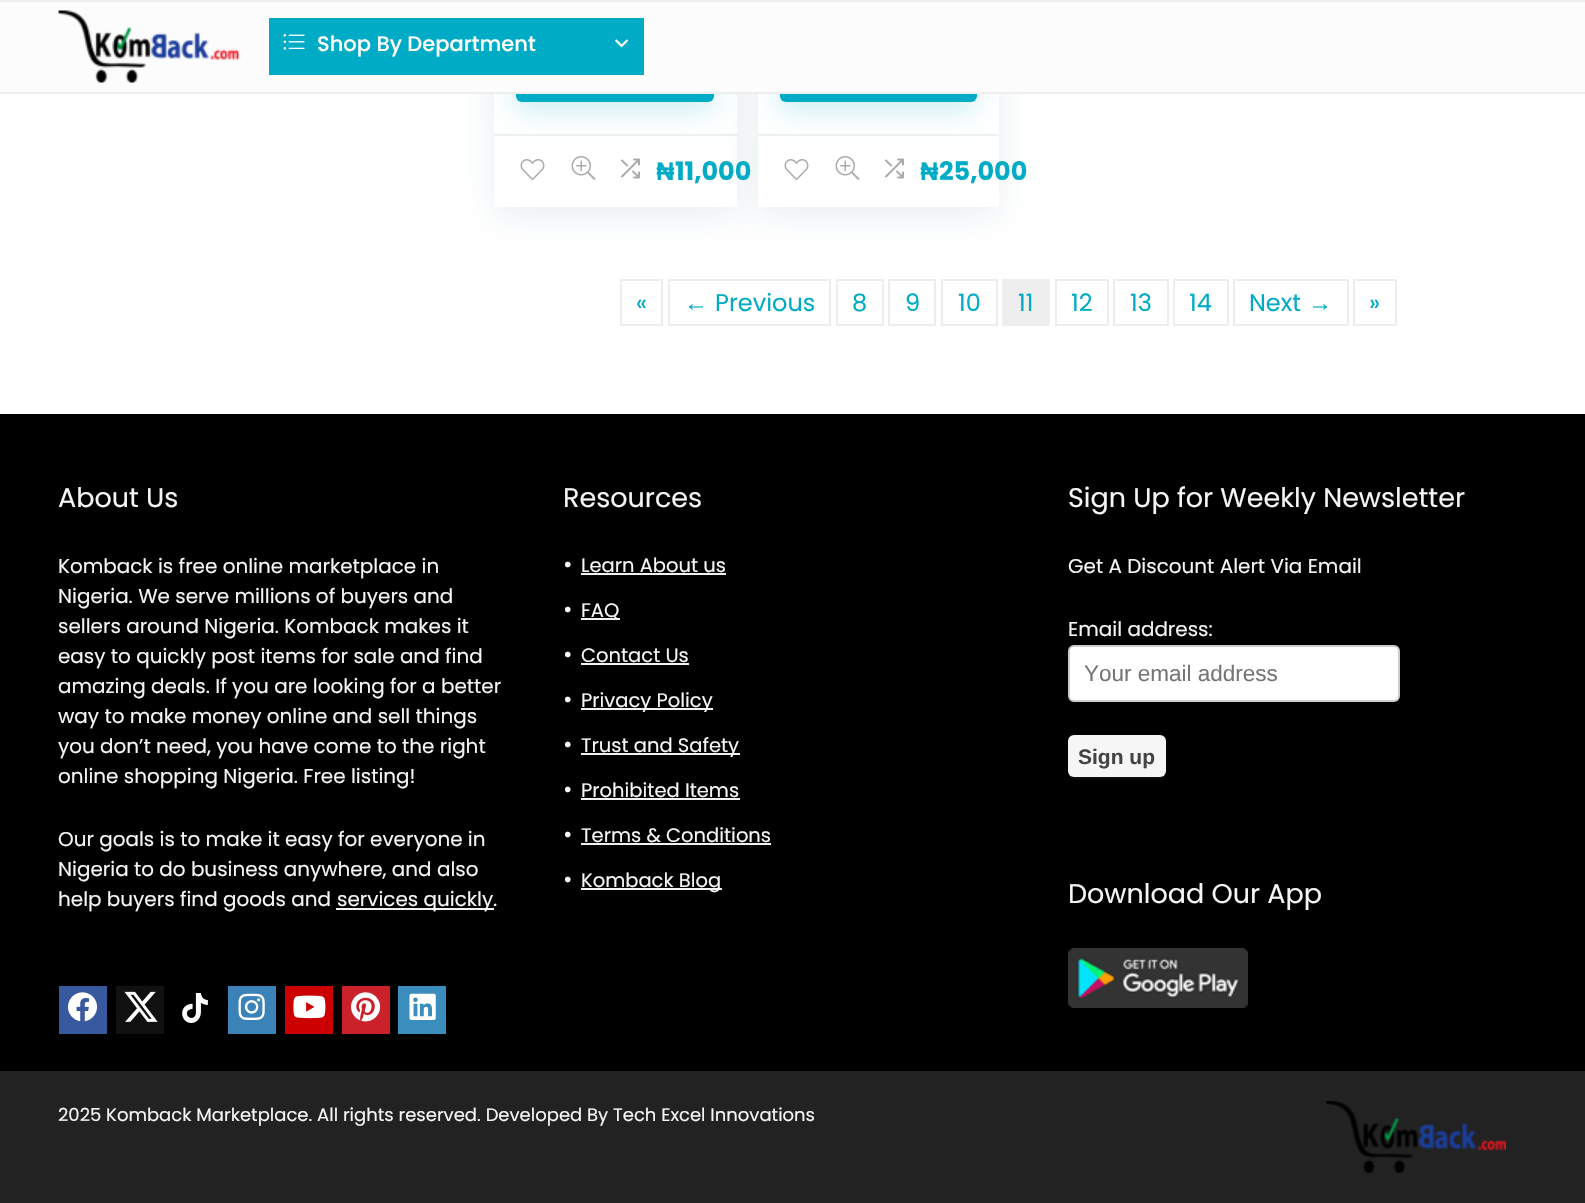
#include "include/core/SkBlurTypes.h"
#include "include/core/SkCanvas.h"
#include "include/core/SkData.h"
#include "include/core/SkFont.h"
#include "include/core/SkFontMgr.h"
#include "include/core/SkImage.h"
#include "include/core/SkMaskFilter.h"
#include "include/core/SkPaint.h"
#include "include/core/SkPathBuilder.h"
#include "include/core/SkTextBlob.h"
#include "include/effects/SkDashPathEffect.h"
#include "include/effects/SkGradientShader.h"
#include "include/utils/SkParsePath.h"

extern sk_sp<SkFontMgr> fontMgr;

void draw(SkCanvas* canvas) {
  SkPaint p;
  p.setAntiAlias(true);
  canvas->clear(SK_ColorWHITE);
  p.setColor(SkColorSetARGB(89, 188, 207, 219));
  p.setMaskFilter(SkMaskFilter::MakeBlur(kNormal_SkBlurStyle, 17));
  canvas->drawRect(SkRect::MakeLTRB(494, -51, 737, 215), p);
  p.setMaskFilter(nullptr);
  p.setColor(SK_ColorWHITE);
  canvas->drawRect(SkRect::MakeLTRB(494, 94, 737, 207), p);
  p.setColor(SkColorSetARGB(51, 0, 171, 197));
  p.setMaskFilter(SkMaskFilter::MakeBlur(kNormal_SkBlurStyle, 14));
  canvas->drawRoundRect(SkRect::MakeLTRB(515, 42, 713, 111), 6, 6, p);
  p.setMaskFilter(nullptr);
  p.setColor(SkColorSetRGB(0, 171, 197));
  canvas->drawRoundRect(SkRect::MakeLTRB(516, 33, 714, 102), 6, 6, p);
  p.setColor(SkColorSetRGB(239, 240, 240));
  canvas->drawRect(SkRect::MakeLTRB(494, 134, 737, 136), p);
  p.setColor(SkColorSetARGB(89, 188, 207, 219));
  p.setMaskFilter(SkMaskFilter::MakeBlur(kNormal_SkBlurStyle, 17));
  canvas->drawRect(SkRect::MakeLTRB(758, -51, 999, 215), p);
  p.setMaskFilter(nullptr);
  p.setColor(SK_ColorWHITE);
  canvas->drawRect(SkRect::MakeLTRB(758, 94, 999, 207), p);
  p.setColor(SkColorSetARGB(51, 0, 171, 197));
  p.setMaskFilter(SkMaskFilter::MakeBlur(kNormal_SkBlurStyle, 14));
  canvas->drawRoundRect(SkRect::MakeLTRB(779, 42, 975, 111), 6, 6, p);
  p.setMaskFilter(nullptr);
  p.setColor(SkColorSetRGB(0, 171, 197));
  canvas->drawRoundRect(SkRect::MakeLTRB(780, 33, 977, 102), 6, 6, p);
  p.setColor(SkColorSetRGB(252, 252, 252));
  canvas->drawRect(SkRect::MakeLTRB(0, 2, 1585, 92), p);
  p.setColor(SkColorSetRGB(238, 238, 238));
  canvas->drawRect(SkRect::MakeLTRB(0, 0, 1585, 2), p);
  canvas->drawRect(SkRect::MakeLTRB(0, 92, 1585, 94), p);
  canvas->drawImageRect(SkImages::DeferredFromEncodedData(SkData::MakeFromFileName("images/1.png")), SkRect::MakeLTRB(58, 10, 239, 83), SkSamplingOptions());
  p.setColor(SkColorSetRGB(0, 171, 197));
  canvas->drawRect(SkRect::MakeLTRB(269, 18, 644, 75), p);
  canvas->drawImageRect(SkImages::DeferredFromEncodedData(SkData::MakeFromFileName("images/2.png")), SkRect::MakeLTRB(283, 34, 305, 50), SkSamplingOptions());
  canvas->drawImageRect(SkImages::DeferredFromEncodedData(SkData::MakeFromFileName("images/3.png")), SkRect::MakeLTRB(615, 39, 629, 48), SkSamplingOptions());
  p.setColor(SkColorSetRGB(239, 240, 240));
  canvas->drawRect(SkRect::MakeLTRB(758, 134, 999, 136), p);
  p.setStyle(SkPaint::kStroke_Style);
  p.setStrokeWidth(2);
  p.setColor(SkColorSetRGB(237, 237, 237));
  canvas->drawRect(SkRect::MakeLTRB(621, 280, 662, 325), p);
  canvas->drawRect(SkRect::MakeLTRB(669, 280, 830, 325), p);
  canvas->drawRect(SkRect::MakeLTRB(837, 280, 883, 325), p);
  canvas->drawRect(SkRect::MakeLTRB(889, 280, 935, 325), p);
  canvas->drawRect(SkRect::MakeLTRB(942, 280, 997, 325), p);
  p.setStyle(SkPaint::kFill_Style);
  p.setColor(SkColorSetRGB(238, 238, 238));
  canvas->drawRect(SkRect::MakeLTRB(1002, 279, 1050, 326), p);
  p.setStyle(SkPaint::kStroke_Style);
  p.setColor(SkColorSetRGB(237, 237, 237));
  canvas->drawRect(SkRect::MakeLTRB(1056, 280, 1108, 325), p);
  canvas->drawRect(SkRect::MakeLTRB(1114, 280, 1168, 325), p);
  canvas->drawRect(SkRect::MakeLTRB(1174, 280, 1228, 325), p);
  canvas->drawRect(SkRect::MakeLTRB(1234, 280, 1348, 325), p);
  canvas->drawRect(SkRect::MakeLTRB(1354, 280, 1396, 325), p);
  p.setStyle(SkPaint::kFill_Style);
  p.setColor(SK_ColorBLACK);
  canvas->drawRect(SkRect::MakeLTRB(0, 414, 1585, 1071), p);
  p.setColor(SkColorSetRGB(241, 241, 241));
  canvas->drawRect(SkRect::MakeLTRB(336, 908, 494, 910), p);
  p.setColor(SkColorSetRGB(57, 89, 159));
  canvas->drawRect(SkRect::MakeLTRB(59, 986, 107, 1034), p);
  canvas->drawImageRect(SkImages::DeferredFromEncodedData(SkData::MakeFromFileName("images/7.png")), SkRect::MakeLTRB(68, 992, 97, 1022), SkSamplingOptions());
  p.setColor(SkColorSetRGB(17, 17, 17));
  canvas->drawRect(SkRect::MakeLTRB(116, 986, 164, 1034), p);
  canvas->drawImageRect(SkImages::DeferredFromEncodedData(SkData::MakeFromFileName("images/8.png")), SkRect::MakeLTRB(124, 991, 158, 1022), SkSamplingOptions());
  canvas->drawImageRect(SkImages::DeferredFromEncodedData(SkData::MakeFromFileName("images/9.png")), SkRect::MakeLTRB(182, 993, 208, 1023), SkSamplingOptions());
  p.setColor(SkColorSetRGB(58, 130, 184));
  canvas->drawRect(SkRect::MakeLTRB(228, 986, 276, 1034), p);
  canvas->drawImageRect(SkImages::DeferredFromEncodedData(SkData::MakeFromFileName("images/10.png")), SkRect::MakeLTRB(238, 993, 265, 1020), SkSamplingOptions());
  p.setColor(SkColorSetRGB(205, 0, 0));
  canvas->drawRect(SkRect::MakeLTRB(285, 986, 333, 1034), p);
  canvas->drawImageRect(SkImages::DeferredFromEncodedData(SkData::MakeFromFileName("images/11.png")), SkRect::MakeLTRB(293, 995, 326, 1019), SkSamplingOptions());
  p.setColor(SkColorSetRGB(202, 33, 42));
  canvas->drawRect(SkRect::MakeLTRB(342, 986, 390, 1034), p);
  canvas->drawImageRect(SkImages::DeferredFromEncodedData(SkData::MakeFromFileName("images/12.png")), SkRect::MakeLTRB(351, 992, 381, 1022), SkSamplingOptions());
  p.setColor(SkColorSetRGB(59, 141, 189));
  canvas->drawRect(SkRect::MakeLTRB(398, 986, 446, 1034), p);
  canvas->drawImageRect(SkImages::DeferredFromEncodedData(SkData::MakeFromFileName("images/13.png")), SkRect::MakeLTRB(409, 993, 436, 1020), SkSamplingOptions());
  p.setColor(SkColorSetRGB(241, 241, 241));
  canvas->drawRect(SkRect::MakeLTRB(581, 573, 726, 575), p);
  canvas->drawRect(SkRect::MakeLTRB(581, 618, 620, 620), p);
  canvas->drawRect(SkRect::MakeLTRB(581, 663, 689, 665), p);
  canvas->drawRect(SkRect::MakeLTRB(581, 708, 713, 710), p);
  canvas->drawRect(SkRect::MakeLTRB(581, 753, 740, 755), p);
  canvas->drawRect(SkRect::MakeLTRB(581, 798, 740, 800), p);
  canvas->drawRect(SkRect::MakeLTRB(581, 843, 771, 845), p);
  canvas->drawRect(SkRect::MakeLTRB(581, 888, 722, 890), p);
  p.setColor(SK_ColorWHITE);
  canvas->drawRoundRect(SkRect::MakeLTRB(1069, 646, 1399, 701), 5, 5, p);
  p.setStyle(SkPaint::kStroke_Style);
  p.setColor(SkColorSetRGB(204, 204, 204));
  canvas->drawRoundRect(SkRect::MakeLTRB(1069, 646, 1399, 701), 5, 5, p);
  canvas->save();
  canvas->clipRect(SkRect::MakeLTRB(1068, 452, 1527, 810));
  p.setStyle(SkPaint::kFill_Style);
  p.setColor(SkColorSetARGB(77, 60, 64, 67));
  p.setMaskFilter(SkMaskFilter::MakeBlur(kNormal_SkBlurStyle, 1.5f));
  canvas->drawRoundRect(SkRect::MakeLTRB(1068, 737, 1166, 779), 6, 6, p);
  p.setMaskFilter(nullptr);
  canvas->restore();
  p.setColor(SkColorSetRGB(246, 246, 246));
  canvas->drawRoundRect(SkRect::MakeLTRB(1068, 735, 1166, 777), 6, 6, p);
  canvas->drawImageRect(SkImages::DeferredFromEncodedData(SkData::MakeFromFileName("images/14.png")), SkRect::MakeLTRB(1068, 948, 1248, 1008), SkSamplingOptions());
  p.setColor(SkColorSetRGB(34, 34, 34));
  canvas->drawRect(SkRect::MakeLTRB(0, 1071, 1585, 1203), p);
  canvas->drawImageRect(SkImages::DeferredFromEncodedData(SkData::MakeFromFileName("images/15.png")), SkRect::MakeLTRB(1326, 1101, 1506, 1173), SkSamplingOptions());
  SkFont font1(fontMgr->matchFamilyStyle("Poppins", SkFontStyle(500, SkFontStyle::kNormal_Width, SkFontStyle::kUpright_Slant)), 21);
  font1.setSubpixel(true);
  p.setColor(SK_ColorWHITE);
  canvas->drawString("Shop By Department", 317, 51, font1, p);
  SkFont font2(fontMgr->matchFamilyStyle("Liberation Sans", SkFontStyle::Bold()), 25.5f);
  font2.setSubpixel(true);
  p.setColor(SkColorSetRGB(0, 171, 197));
  canvas->drawString("₦", 656, 180, font2, p);
  p.setColor(SkColorSetARGB(199, 255, 255, 255));
  canvas->drawRoundRect(SkRect::MakeLTRB(509, 150, 657, 192), 21, 21, p);
  canvas->drawImageRect(SkImages::DeferredFromEncodedData(SkData::MakeFromFileName("images/6.png")), SkRect::MakeLTRB(621, 158, 640, 179), SkSamplingOptions());
  canvas->drawImageRect(SkImages::DeferredFromEncodedData(SkData::MakeFromFileName("images/5.png")), SkRect::MakeLTRB(571, 156, 596, 180), SkSamplingOptions());
  canvas->drawImageRect(SkImages::DeferredFromEncodedData(SkData::MakeFromFileName("images/4.png")), SkRect::MakeLTRB(520, 159, 545, 180), SkSamplingOptions());
  SkFont font3(fontMgr->matchFamilyStyle("Poppins", SkFontStyle::Bold()), 25.5f);
  font3.setSubpixel(true);
  p.setColor(SkColorSetRGB(0, 171, 197));
  canvas->drawString("11,000", 675, 180, font3, p);
  canvas->drawString("₦", 920, 180, font2, p);
  p.setColor(SkColorSetARGB(199, 255, 255, 255));
  canvas->drawRoundRect(SkRect::MakeLTRB(773, 150, 921, 192), 21, 21, p);
  canvas->drawImageRect(SkImages::DeferredFromEncodedData(SkData::MakeFromFileName("images/6.png")), SkRect::MakeLTRB(885, 158, 904, 179), SkSamplingOptions());
  canvas->drawImageRect(SkImages::DeferredFromEncodedData(SkData::MakeFromFileName("images/5.png")), SkRect::MakeLTRB(835, 156, 860, 180), SkSamplingOptions());
  canvas->drawImageRect(SkImages::DeferredFromEncodedData(SkData::MakeFromFileName("images/4.png")), SkRect::MakeLTRB(784, 159, 809, 180), SkSamplingOptions());
  p.setColor(SkColorSetRGB(0, 171, 197));
  canvas->drawString("25,000", 939, 180, font3, p);
  SkFont font4(fontMgr->matchFamilyStyle("Poppins", SkFontStyle::Normal()), 24);
  font4.setSubpixel(true);
  canvas->drawString("«", 636, 311, font4, p);
  SkFont font5(fontMgr->matchFamilyStyle("Liberation Sans", SkFontStyle::Normal()), 24);
  font5.setSubpixel(true);
  canvas->drawString("←", 684, 311, font5, p);
  canvas->drawString("Previous", 715, 311, font4, p);
  canvas->drawString("8", 852, 311, font4, p);
  canvas->drawString("9", 905, 311, font4, p);
  canvas->drawString("10", 958, 311, font4, p);
  canvas->drawString("11", 1018, 311, font4, p);
  canvas->drawString("12", 1071, 311, font4, p);
  canvas->drawString("13", 1130, 311, font4, p);
  canvas->drawString("14", 1189, 311, font4, p);
  canvas->drawString("Next", 1249, 311, font4, p);
  canvas->drawString("→", 1308, 311, font5, p);
  canvas->drawString("»", 1369, 311, font4, p);
  SkFont font6(fontMgr->matchFamilyStyle("Poppins", SkFontStyle::Normal()), 27);
  font6.setSubpixel(true);
  p.setColor(SkColorSetRGB(245, 245, 245));
  canvas->drawString("About Us", 58, 507, font6, p);
  SkFont font7(fontMgr->matchFamilyStyle("Poppins", SkFontStyle::Normal()), 19.95f);
  font7.setSubpixel(true);
  canvas->drawString("Komback is free online marketplace in", 58, 573, font7, p);
  canvas->drawString("Nigeria. We serve millions of buyers and", 58, 603, font7, p);
  canvas->drawString("sellers around Nigeria. Komback makes it", 58, 633, font7, p);
  canvas->drawString("easy to quickly post items for sale and find", 58, 663, font7, p);
  canvas->drawString("amazing deals. If you are looking for a better", 58, 693, font7, p);
  canvas->drawString("way to make money online and sell things", 58, 723, font7, p);
  canvas->drawString("you don’t need, you have come to the right", 58, 753, font7, p);
  canvas->drawString("online shopping Nigeria. Free listing!", 58, 783, font7, p);
  canvas->drawString("Our goals is to make it easy for everyone in", 58, 846, font7, p);
  canvas->drawString("Nigeria to do business anywhere, and also", 58, 876, font7, p);
  canvas->drawString("help buyers find goods and", 58, 906, font7, p);
  canvas->drawString("services quickly", 337, 906, font7, p);
  canvas->drawString(".", 493, 906, font7, p);
  canvas->drawString("Resources", 563, 507, font6, p);
  SkFont font8(fontMgr->matchFamilyStyle("Poppins", SkFontStyle::Normal()), 45);
  font8.setSubpixel(true);
  p.setColor(SK_ColorWHITE);
  canvas->drawString(".", 563, 567, font8, p);
  SkFont font9(fontMgr->matchFamilyStyle("Poppins", SkFontStyle::Normal()), 19.5f);
  font9.setSubpixel(true);
  p.setColor(SkColorSetRGB(245, 245, 245));
  canvas->drawString("Learn About us", 581, 572, font9, p);
  p.setColor(SK_ColorWHITE);
  canvas->drawString(".", 563, 612, font8, p);
  p.setColor(SkColorSetRGB(245, 245, 245));
  canvas->drawString("FAQ", 581, 617, font9, p);
  p.setColor(SK_ColorWHITE);
  canvas->drawString(".", 563, 657, font8, p);
  p.setColor(SkColorSetRGB(245, 245, 245));
  canvas->drawString("Contact Us", 581, 662, font9, p);
  p.setColor(SK_ColorWHITE);
  canvas->drawString(".", 563, 702, font8, p);
  p.setColor(SkColorSetRGB(245, 245, 245));
  canvas->drawString("Privacy Policy", 581, 707, font9, p);
  p.setColor(SK_ColorWHITE);
  canvas->drawString(".", 563, 747, font8, p);
  p.setColor(SkColorSetRGB(245, 245, 245));
  canvas->drawString("Trust and Safety", 581, 752, font9, p);
  p.setColor(SK_ColorWHITE);
  canvas->drawString(".", 563, 792, font8, p);
  p.setColor(SkColorSetRGB(245, 245, 245));
  canvas->drawString("Prohibited Items", 581, 797, font9, p);
  p.setColor(SK_ColorWHITE);
  canvas->drawString(".", 563, 837, font8, p);
  p.setColor(SkColorSetRGB(245, 245, 245));
  canvas->drawString("Terms & Conditions", 581, 842, font9, p);
  p.setColor(SK_ColorWHITE);
  canvas->drawString(".", 563, 882, font8, p);
  p.setColor(SkColorSetRGB(245, 245, 245));
  canvas->drawString("Komback Blog", 581, 887, font9, p);
  canvas->drawString("Sign Up for Weekly Newsletter", 1068, 507, font6, p);
  canvas->drawString("Get A Discount Alert Via Email", 1068, 573, font7, p);
  canvas->drawString("Email address:", 1068, 636, font7, p);
  SkFont font10(fontMgr->matchFamilyStyle("Liberation Sans", SkFontStyle::Normal()), 22.5f);
  font10.setSubpixel(true);
  p.setColor(SkColorSetRGB(117, 117, 117));
  canvas->drawString("Your email address", 1084, 681, font10, p);
  SkFont font11(fontMgr->matchFamilyStyle("Liberation Sans", SkFontStyle::Bold()), 21);
  font11.setSubpixel(true);
  p.setColor(SkColorSetRGB(68, 68, 68));
  canvas->drawString("Sign up", 1078, 764, font11, p);
  p.setColor(SkColorSetRGB(245, 245, 245));
  canvas->drawString("Download Our App", 1068, 903, font6, p);
  SkFont font12(fontMgr->matchFamilyStyle("Poppins", SkFontStyle::Normal()), 18);
  font12.setSubpixel(true);
  canvas->drawString("2025 Komback Marketplace. All rights reserved. Developed By Tech Excel Innovations", 58, 1121, font12, p);
}
